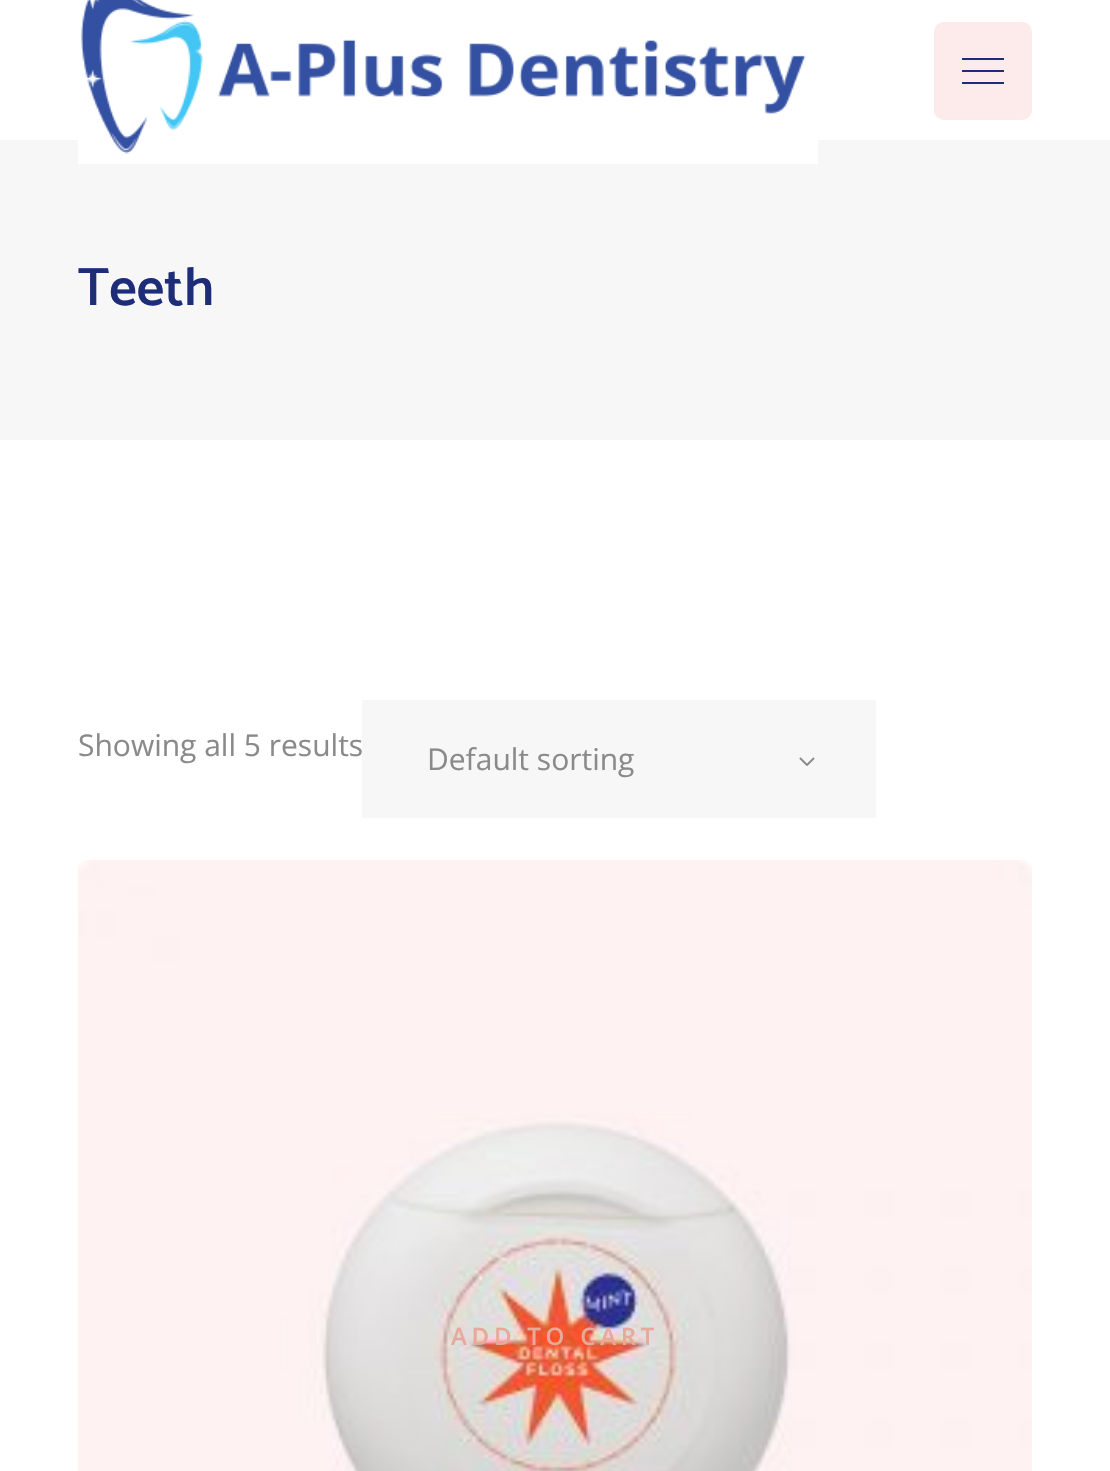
#include "include/core/SkBlurTypes.h"
#include "include/core/SkCanvas.h"
#include "include/core/SkData.h"
#include "include/core/SkFont.h"
#include "include/core/SkFontMgr.h"
#include "include/core/SkImage.h"
#include "include/core/SkMaskFilter.h"
#include "include/core/SkPaint.h"
#include "include/core/SkPathBuilder.h"
#include "include/core/SkTextBlob.h"
#include "include/effects/SkDashPathEffect.h"
#include "include/effects/SkGradientShader.h"
#include "include/utils/SkParsePath.h"

extern sk_sp<SkFontMgr> fontMgr;

void draw(SkCanvas* canvas) {
  SkPaint p;
  p.setAntiAlias(true);
  auto spacedText = [&](const char* s, float x, float y, const SkFont& font, const SkPaint& ink, float letter, float word) {
    std::vector<SkGlyphID> glyphs(font.countText(s, strlen(s), SkTextEncoding::kUTF8));
    std::vector<float> xs(glyphs.size());
    font.textToGlyphs(s, strlen(s), SkTextEncoding::kUTF8, glyphs);
    font.getXPos(glyphs, xs, x);
    float extra = 0;
    for (size_t i = 0; i < glyphs.size(); i++) {
      xs[i] += extra;
      extra += letter + word * (glyphs[i] == font.unicharToGlyph(' '));
    }
    canvas->drawTextBlob(SkTextBlob::MakeFromPosHGlyphs(glyphs, xs, y, font), 0, 0, ink);
  };
  canvas->clear(SK_ColorWHITE);
  p.setColor(SkColorSetRGB(247, 247, 247));
  canvas->drawRect(SkRect::MakeLTRB(0, 140, 1110, 440), p);
  canvas->drawImageRect(SkImages::DeferredFromEncodedData(SkData::MakeFromFileName("images/1.png")), SkRect::MakeLTRB(78, 0, 818, 164), SkSamplingOptions());
  p.setColor(SkColorSetRGB(253, 234, 234));
  canvas->drawRoundRect(SkRect::MakeLTRB(934, 22, 1032, 120), 10, 10, p);
  p.setColor(SkColorSetRGB(30, 45, 120));
  canvas->drawRect(SkRect::MakeLTRB(962, 58, 1004, 60), p);
  canvas->drawRect(SkRect::MakeLTRB(962, 70, 1004, 72), p);
  canvas->drawRect(SkRect::MakeLTRB(962, 82, 1004, 84), p);
  p.setColor(SkColorSetRGB(247, 247, 247));
  canvas->drawRect(SkRect::MakeLTRB(362, 700, 876, 818), p);
  canvas->drawImageRect(SkImages::DeferredFromEncodedData(SkData::MakeFromFileName("images/2.png")), SkRect::MakeLTRB(799, 757, 815, 766), SkSamplingOptions());
  canvas->drawImageRect(SkImages::DeferredFromEncodedData(SkData::MakeFromFileName("images/3.png")), SkRect::MakeLTRB(78, 860, 1032, 1471), SkSamplingOptions());
  SkFont font1(fontMgr->matchFamilyStyle("Catamaran", SkFontStyle(600, SkFontStyle::kNormal_Width, SkFontStyle::kUpright_Slant)), 54);
  font1.setSubpixel(true);
  p.setColor(SkColorSetRGB(30, 45, 120));
  canvas->drawString("Teeth", 78, 305, font1, p);
  SkFont font2(fontMgr->matchFamilyStyle("Open Sans", SkFontStyle::Normal()), 30);
  font2.setSubpixel(true);
  p.setColor(SkColorSetRGB(138, 138, 138));
  canvas->drawString("Showing all 5 results", 78, 756, font2, p);
  canvas->drawString("Default sorting", 427, 770, font2, p);
  SkFont font3(fontMgr->matchFamilyStyle("Open Sans", SkFontStyle(600, SkFontStyle::kNormal_Width, SkFontStyle::kUpright_Slant)), 24);
  font3.setSubpixel(true);
  p.setColor(SkColorSetRGB(230, 169, 154));
  spacedText("ADD TO CART", 451, 1345, font3, p, 4.75f, 0);
}
